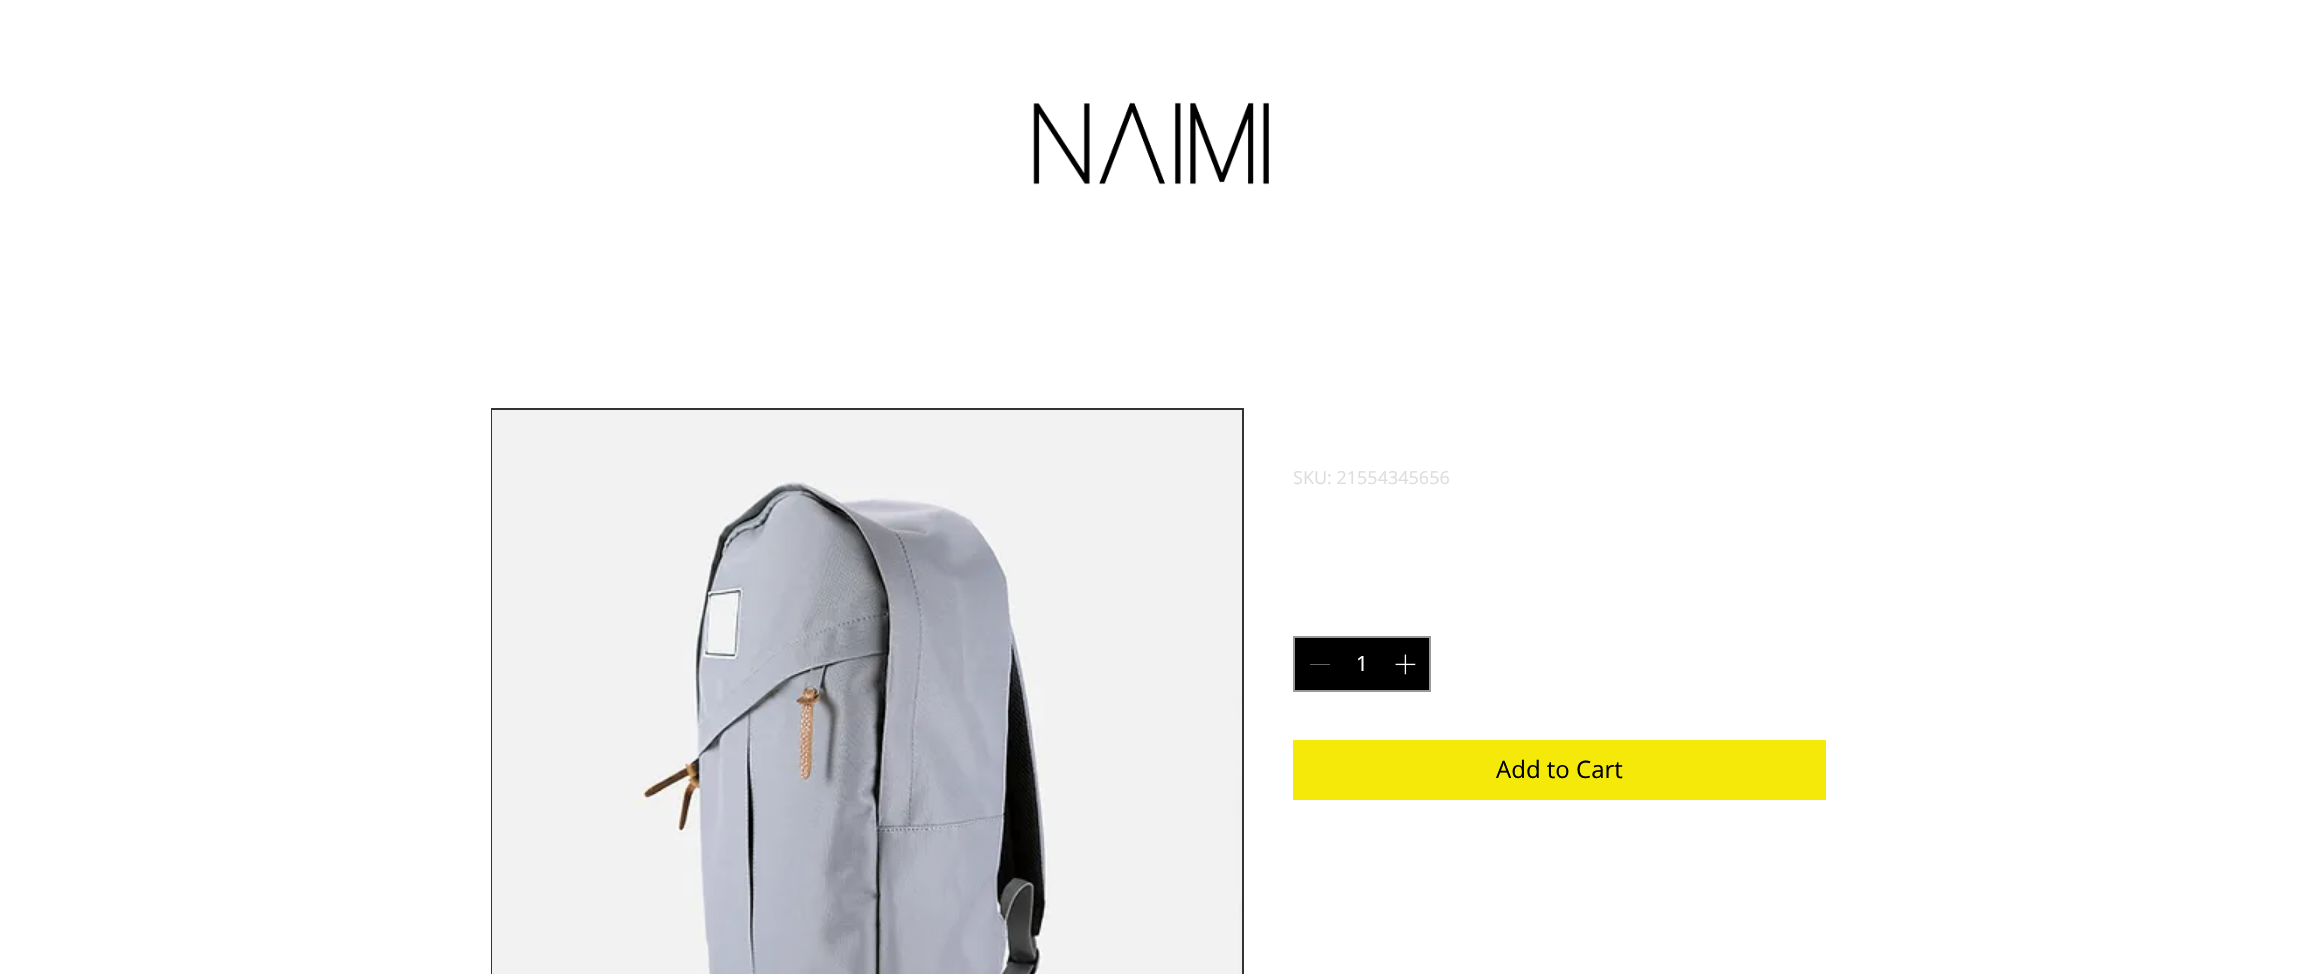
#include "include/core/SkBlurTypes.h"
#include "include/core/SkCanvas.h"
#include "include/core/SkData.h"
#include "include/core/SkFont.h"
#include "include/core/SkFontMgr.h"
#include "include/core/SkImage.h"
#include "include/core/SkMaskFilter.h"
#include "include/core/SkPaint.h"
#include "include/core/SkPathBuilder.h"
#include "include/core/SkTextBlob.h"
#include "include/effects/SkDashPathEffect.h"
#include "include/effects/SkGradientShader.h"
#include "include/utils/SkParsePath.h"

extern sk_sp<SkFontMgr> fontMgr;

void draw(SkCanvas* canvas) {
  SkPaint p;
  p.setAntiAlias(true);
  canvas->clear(SK_ColorWHITE);
  canvas->drawImageRect(SkImages::DeferredFromEncodedData(SkData::MakeFromFileName("images/1.png")), SkRect::MakeLTRB(1033, 102, 1269, 185), SkSamplingOptions());
  p.setStyle(SkPaint::kStroke_Style);
  p.setStrokeWidth(2);
  p.setColor(SkColorSetRGB(51, 51, 51));
  canvas->drawRect(SkRect::MakeLTRB(492, 409, 1243, 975), p);
  canvas->drawImageRect(SkImages::DeferredFromEncodedData(SkData::MakeFromFileName("images/2.png")), SkRect::MakeLTRB(492, 410, 1242, 974), SkSamplingOptions());
  p.setStyle(SkPaint::kFill_Style);
  p.setColor(SK_ColorBLACK);
  canvas->drawRect(SkRect::MakeLTRB(1294, 637, 1430, 691), p);
  p.setStyle(SkPaint::kStroke_Style);
  p.setColor(SkColorSetRGB(153, 153, 153));
  canvas->drawRect(SkRect::MakeLTRB(1294, 637, 1430, 691), p);
  p.setStyle(SkPaint::kFill_Style);
  p.setColor(SkColorSetRGB(100, 100, 100));
  canvas->drawRect(SkRect::MakeLTRB(1310, 664, 1330, 665), p);
  canvas->drawImageRect(SkImages::DeferredFromEncodedData(SkData::MakeFromFileName("images/3.png")), SkRect::MakeLTRB(1395, 654, 1416, 675), SkSamplingOptions());
  p.setColor(SkColorSetRGB(244, 233, 9));
  canvas->drawRect(SkRect::MakeLTRB(1293, 740, 1826, 800), p);
  SkFont font1(fontMgr->matchFamilyStyle("Open Sans", SkFontStyle::Normal()), 18);
  font1.setSubpixel(true);
  p.setColor(SkColorSetRGB(221, 221, 221));
  canvas->drawString("SKU: 21554345656", 1293, 484, font1, p);
  SkFont font2(fontMgr->matchFamilyStyle("Open Sans", SkFontStyle::Normal()), 21);
  font2.setSubpixel(true);
  p.setColor(SK_ColorWHITE);
  canvas->drawString("1", 1356, 671, font2, p);
  SkFont font3(fontMgr->matchFamilyStyle("Open Sans", SkFontStyle::Normal()), 24);
  font3.setSubpixel(true);
  p.setColor(SK_ColorBLACK);
  canvas->drawString("Add to Cart", 1496, 778, font3, p);
}
